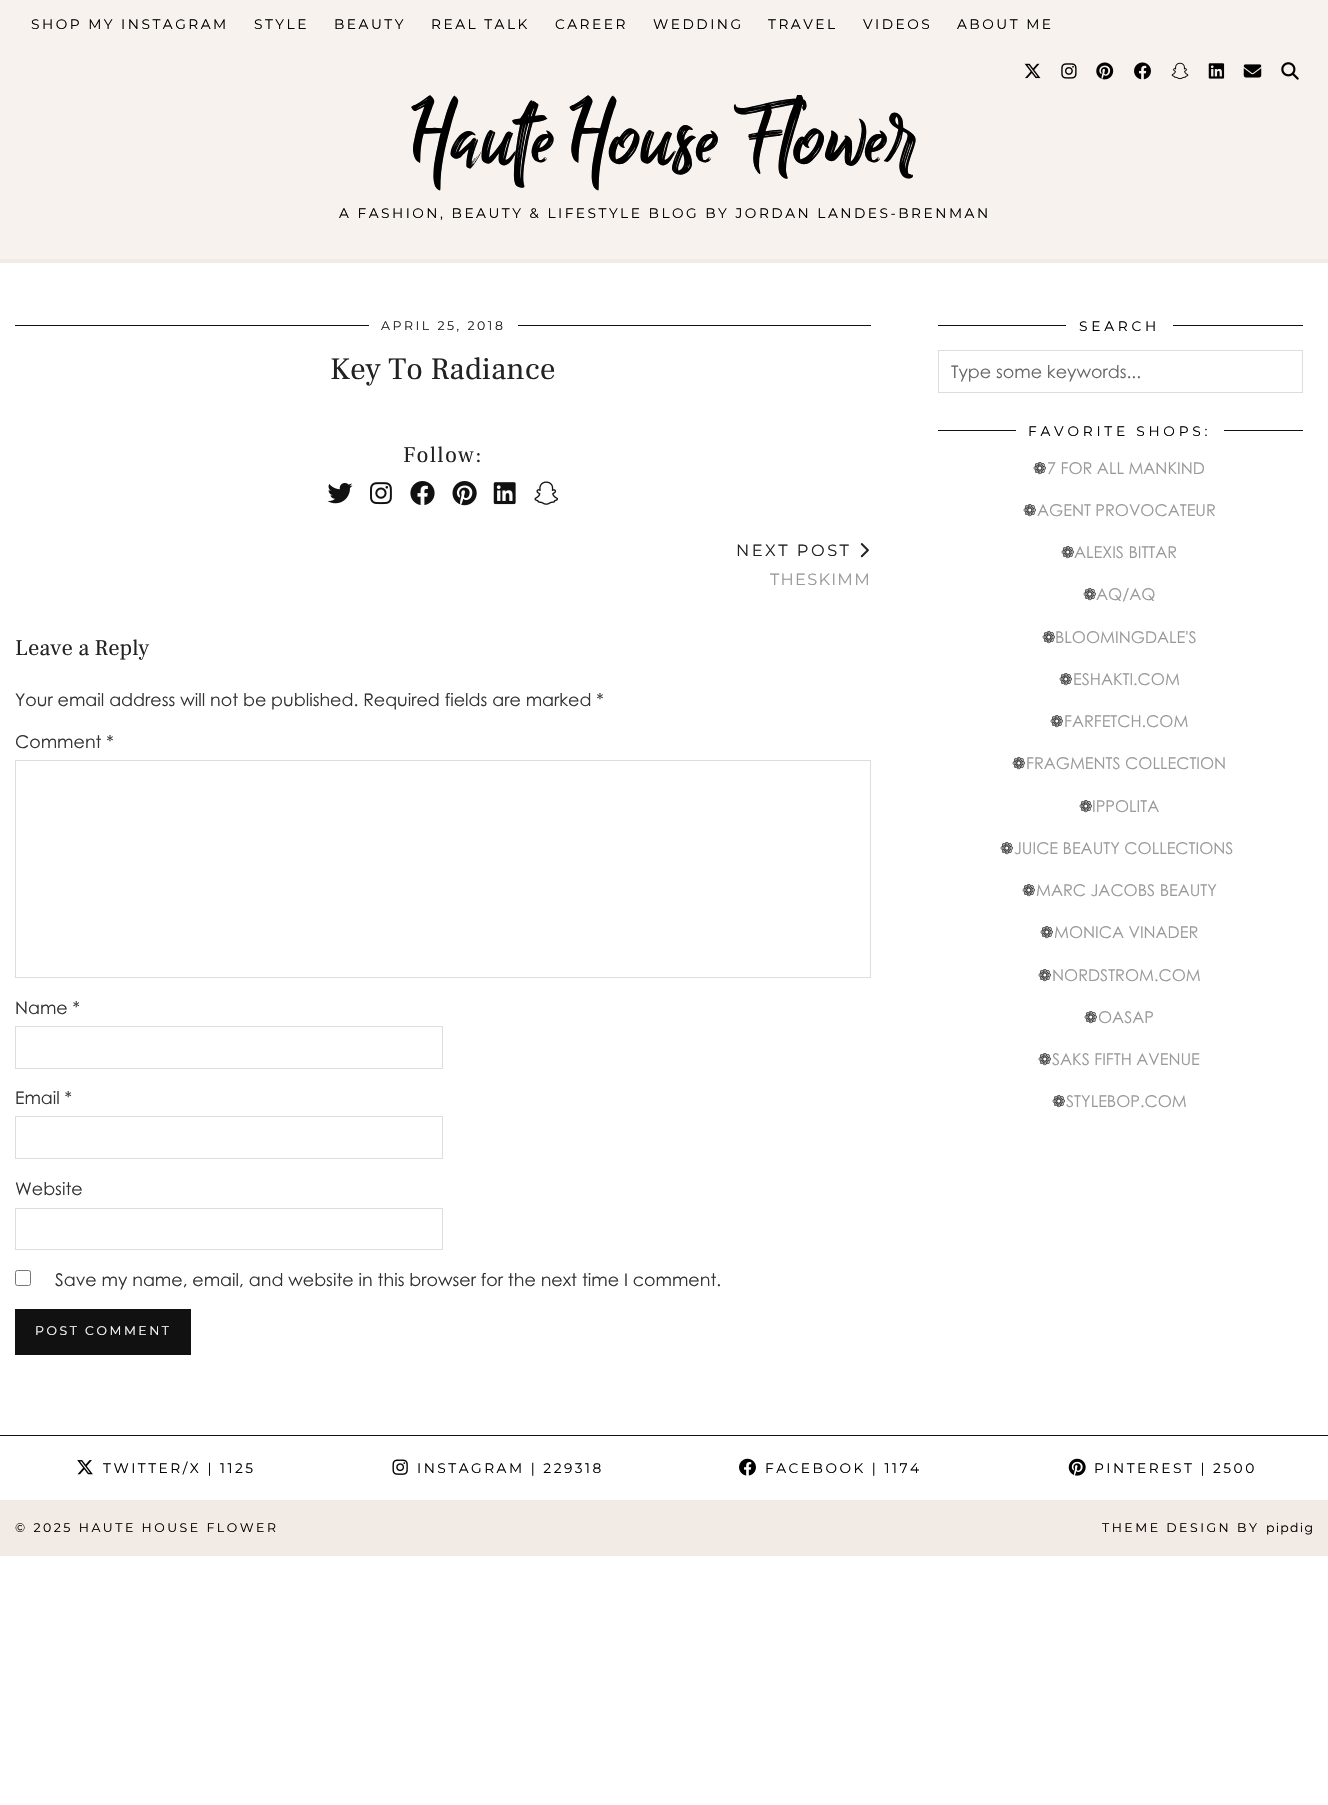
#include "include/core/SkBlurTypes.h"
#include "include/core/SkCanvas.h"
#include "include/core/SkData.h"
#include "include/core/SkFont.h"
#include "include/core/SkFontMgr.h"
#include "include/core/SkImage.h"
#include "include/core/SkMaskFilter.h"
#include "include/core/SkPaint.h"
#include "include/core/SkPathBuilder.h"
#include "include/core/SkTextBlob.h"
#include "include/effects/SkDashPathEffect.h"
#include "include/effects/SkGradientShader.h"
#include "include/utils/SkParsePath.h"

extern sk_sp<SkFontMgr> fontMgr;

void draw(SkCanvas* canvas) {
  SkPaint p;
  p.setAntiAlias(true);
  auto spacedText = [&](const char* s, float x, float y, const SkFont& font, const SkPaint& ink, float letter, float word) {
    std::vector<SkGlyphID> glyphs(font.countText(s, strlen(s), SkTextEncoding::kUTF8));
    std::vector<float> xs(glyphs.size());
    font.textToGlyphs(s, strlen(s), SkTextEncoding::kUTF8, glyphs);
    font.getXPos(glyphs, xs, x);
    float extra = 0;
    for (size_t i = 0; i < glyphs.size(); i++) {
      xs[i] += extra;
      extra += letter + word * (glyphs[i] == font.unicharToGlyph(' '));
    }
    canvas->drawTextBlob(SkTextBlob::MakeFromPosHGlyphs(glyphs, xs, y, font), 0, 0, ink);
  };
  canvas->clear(SK_ColorWHITE);
  p.setColor(SkColorSetRGB(248, 242, 238));
  canvas->drawRect(SkRect::MakeLTRB(0, 95, 1328, 259), p);
  p.setColor(SkColorSetRGB(242, 234, 229));
  canvas->drawRect(SkRect::MakeLTRB(0, 259, 1328, 263), p);
  p.setColor(SkColorSetRGB(17, 17, 17));
  canvas->drawRect(SkRect::MakeLTRB(15, 325, 871, 326), p);
  p.setColor(SK_ColorWHITE);
  canvas->drawRect(SkRect::MakeLTRB(369, 325, 518, 326), p);
  canvas->drawImageRect(SkImages::DeferredFromEncodedData(SkData::MakeFromFileName("images/9.png")), SkRect::MakeLTRB(327, 483, 353, 504), SkSamplingOptions());
  canvas->drawImageRect(SkImages::DeferredFromEncodedData(SkData::MakeFromFileName("images/10.png")), SkRect::MakeLTRB(370, 482, 392, 505), SkSamplingOptions());
  canvas->drawImageRect(SkImages::DeferredFromEncodedData(SkData::MakeFromFileName("images/11.png")), SkRect::MakeLTRB(410, 481, 435, 505), SkSamplingOptions());
  canvas->drawImageRect(SkImages::DeferredFromEncodedData(SkData::MakeFromFileName("images/12.png")), SkRect::MakeLTRB(452, 481, 477, 506), SkSamplingOptions());
  canvas->drawImageRect(SkImages::DeferredFromEncodedData(SkData::MakeFromFileName("images/13.png")), SkRect::MakeLTRB(493, 482, 516, 505), SkSamplingOptions());
  canvas->drawImageRect(SkImages::DeferredFromEncodedData(SkData::MakeFromFileName("images/14.png")), SkRect::MakeLTRB(534, 481, 558, 505), SkSamplingOptions());
  canvas->drawImageRect(SkImages::DeferredFromEncodedData(SkData::MakeFromFileName("images/15.png")), SkRect::MakeLTRB(860, 543, 869, 558), SkSamplingOptions());
  p.setStyle(SkPaint::kStroke_Style);
  p.setStrokeWidth(1);
  p.setColor(SkColorSetRGB(221, 221, 221));
  canvas->drawRect(SkRect::MakeLTRB(15.5f, 760.5f, 870.5f, 977.5f), p);
  canvas->drawRect(SkRect::MakeLTRB(15.5f, 1026.5f, 442.5f, 1068.5f), p);
  canvas->drawRect(SkRect::MakeLTRB(15.5f, 1116.5f, 442.5f, 1158.5f), p);
  canvas->drawRect(SkRect::MakeLTRB(15.5f, 1208.5f, 442.5f, 1249.5f), p);
  p.setColor(SkColorSetRGB(118, 118, 118));
  canvas->drawRoundRect(SkRect::MakeLTRB(15.5f, 1270.5f, 30.5f, 1285.5f), 2, 2, p);
  p.setStyle(SkPaint::kFill_Style);
  p.setColor(SkColorSetRGB(17, 17, 17));
  canvas->drawRect(SkRect::MakeLTRB(15, 1309, 191, 1355), p);
  canvas->drawRect(SkRect::MakeLTRB(938, 325, 1303, 326), p);
  p.setColor(SK_ColorWHITE);
  canvas->drawRect(SkRect::MakeLTRB(1066, 325, 1173, 326), p);
  p.setStyle(SkPaint::kStroke_Style);
  p.setColor(SkColorSetRGB(221, 221, 221));
  canvas->drawRect(SkRect::MakeLTRB(938.5f, 350.5f, 1302.5f, 392.5f), p);
  p.setStyle(SkPaint::kFill_Style);
  p.setColor(SkColorSetRGB(17, 17, 17));
  canvas->drawRect(SkRect::MakeLTRB(938, 430, 1303, 431), p);
  p.setColor(SK_ColorWHITE);
  canvas->drawRect(SkRect::MakeLTRB(1016, 430, 1224, 431), p);
  p.setColor(SkColorSetRGB(17, 17, 17));
  canvas->drawRect(SkRect::MakeLTRB(0, 1435, 1328, 1436), p);
  canvas->drawImageRect(SkImages::DeferredFromEncodedData(SkData::MakeFromFileName("images/16.png")), SkRect::MakeLTRB(77, 1460, 93, 1475), SkSamplingOptions());
  canvas->drawImageRect(SkImages::DeferredFromEncodedData(SkData::MakeFromFileName("images/17.png")), SkRect::MakeLTRB(392, 1459, 408, 1475), SkSamplingOptions());
  canvas->drawImageRect(SkImages::DeferredFromEncodedData(SkData::MakeFromFileName("images/18.png")), SkRect::MakeLTRB(739, 1458, 756, 1476), SkSamplingOptions());
  canvas->drawImageRect(SkImages::DeferredFromEncodedData(SkData::MakeFromFileName("images/19.png")), SkRect::MakeLTRB(1068, 1458, 1086, 1476), SkSamplingOptions());
  p.setColor(SkColorSetRGB(242, 234, 229));
  canvas->drawRect(SkRect::MakeLTRB(0, 1500, 1328, 1556), p);
  SkFont font1(fontMgr->matchFamilyStyle("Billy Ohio", SkFontStyle::Normal()), 100);
  font1.setSubpixel(true);
  p.setColor(SK_ColorBLACK);
  canvas->drawString("Haute House Flower", 411, 163, font1, p);
  p.setColor(SkColorSetRGB(248, 242, 238));
  canvas->drawRect(SkRect::MakeLTRB(0, 0, 1328, 95), p);
  canvas->drawImageRect(SkImages::DeferredFromEncodedData(SkData::MakeFromFileName("images/8.png")), SkRect::MakeLTRB(1281, 62, 1299, 80), SkSamplingOptions());
  canvas->drawImageRect(SkImages::DeferredFromEncodedData(SkData::MakeFromFileName("images/7.png")), SkRect::MakeLTRB(1243, 64, 1262, 78), SkSamplingOptions());
  canvas->drawImageRect(SkImages::DeferredFromEncodedData(SkData::MakeFromFileName("images/6.png")), SkRect::MakeLTRB(1208, 63, 1225, 79), SkSamplingOptions());
  canvas->drawImageRect(SkImages::DeferredFromEncodedData(SkData::MakeFromFileName("images/5.png")), SkRect::MakeLTRB(1171, 62, 1189, 80), SkSamplingOptions());
  canvas->drawImageRect(SkImages::DeferredFromEncodedData(SkData::MakeFromFileName("images/4.png")), SkRect::MakeLTRB(1134, 62, 1151, 80), SkSamplingOptions());
  canvas->drawImageRect(SkImages::DeferredFromEncodedData(SkData::MakeFromFileName("images/3.png")), SkRect::MakeLTRB(1096, 62, 1114, 80), SkSamplingOptions());
  canvas->drawImageRect(SkImages::DeferredFromEncodedData(SkData::MakeFromFileName("images/2.png")), SkRect::MakeLTRB(1061, 63, 1077, 79), SkSamplingOptions());
  canvas->drawImageRect(SkImages::DeferredFromEncodedData(SkData::MakeFromFileName("images/1.png")), SkRect::MakeLTRB(1024, 63, 1041, 79), SkSamplingOptions());
  SkFont font2(fontMgr->matchFamilyStyle("Montserrat", SkFontStyle(100, SkFontStyle::kNormal_Width, SkFontStyle::kUpright_Slant)), 13.75f);
  font2.setSubpixel(true);
  p.setColor(SK_ColorBLACK);
  spacedText("ABOUT ME", 957, 29, font2, p, 2.5f, 0);
  spacedText("VIDEOS", 863, 29, font2, p, 2.5f, 0);
  spacedText("TRAVEL", 768, 29, font2, p, 2.5f, 0);
  spacedText("WEDDING", 653, 29, font2, p, 2.5f, 0);
  spacedText("CAREER", 555, 29, font2, p, 2.5f, 0);
  spacedText("REAL TALK", 431, 29, font2, p, 2.5f, 0);
  spacedText("BEAUTY", 334, 29, font2, p, 2.5f, 0);
  spacedText("STYLE", 254, 29, font2, p, 2.5f, 0);
  spacedText("SHOP MY INSTAGRAM", 31, 29, font2, p, 2.5f, 0);
  spacedText("A FASHION, BEAUTY & LIFESTYLE BLOG BY JORDAN LANDES-BRENMAN", 339, 218, font2, p, 2.5f, 0);
  SkFont font3(fontMgr->matchFamilyStyle("Montserrat", SkFontStyle(100, SkFontStyle::kNormal_Width, SkFontStyle::kUpright_Slant)), 12.5f);
  font3.setSubpixel(true);
  p.setColor(SkColorSetRGB(34, 34, 34));
  spacedText("APRIL 25, 2018", 381, 330, font3, p, 2.5f, 0);
  SkFont font4(fontMgr->matchFamilyStyle("Frank Ruhl Libre", SkFontStyle::Normal()), 31.25f);
  font4.setSubpixel(true);
  canvas->drawString("Key To Radiance", 330, 379, font4, p);
  SkFont font5(fontMgr->matchFamilyStyle("Frank Ruhl Libre", SkFontStyle::Normal()), 22.5f);
  font5.setSubpixel(true);
  spacedText("Follow:", 403, 462, font5, p, 1.25f, 0);
  SkFont font6(fontMgr->matchFamilyStyle("Montserrat", SkFontStyle(100, SkFontStyle::kNormal_Width, SkFontStyle::kUpright_Slant)), 16.25f);
  font6.setSubpixel(true);
  spacedText("NEXT POST", 736, 556, font6, p, 2.5f, 0);
  p.setColor(SkColorSetRGB(153, 153, 153));
  spacedText("THESKIMM", 770, 585, font6, p, 1.25f, 0);
  p.setColor(SkColorSetRGB(34, 34, 34));
  canvas->drawString("Leave a Reply", 15, 655, font5, p);
  SkFont font7(fontMgr->matchFamilyStyle("Century Gothic", SkFontStyle::Normal()), 17.5f);
  font7.setSubpixel(true);
  p.setColor(SkColorSetRGB(51, 51, 51));
  canvas->drawString("Your email address will not be published. Required fields are marked *", 15, 706, font7, p);
  canvas->drawString("Comment *", 15, 748, font7, p);
  canvas->drawString("Name *", 15, 1014, font7, p);
  canvas->drawString("Email *", 15, 1104, font7, p);
  canvas->drawString("Website", 15, 1195, font7, p);
  canvas->drawString("Save my name, email, and website in this browser for the next time I comment.", 55, 1286, font7, p);
  p.setColor(SK_ColorWHITE);
  spacedText("POST COMMENT", 35, 1335, font3, p, 2.5f, 0);
  p.setColor(SK_ColorBLACK);
  spacedText("SEARCH", 1079, 331, font2, p, 3.75f, 0);
  p.setColor(SkColorSetRGB(102, 102, 102));
  canvas->drawString("Type some keywords...", 951, 378, font7, p);
  p.setColor(SK_ColorBLACK);
  spacedText("FAVORITE SHOPS:", 1028, 436, font2, p, 3.75f, 0);
  SkFont font8(fontMgr->matchFamilyStyle("DejaVu Sans", SkFontStyle::Normal()), 16.25f);
  font8.setSubpixel(true);
  p.setColor(SkColorSetRGB(51, 51, 51));
  canvas->drawString("❁", 1033, 474, font8, p);
  SkFont font9(fontMgr->matchFamilyStyle("Century Gothic", SkFontStyle::Normal()), 16.25f);
  font9.setSubpixel(true);
  p.setColor(SkColorSetRGB(153, 153, 153));
  canvas->drawString("7 FOR ALL MANKIND", 1047, 474, font9, p);
  p.setColor(SkColorSetRGB(51, 51, 51));
  canvas->drawString("❁", 1023, 516, font8, p);
  p.setColor(SkColorSetRGB(153, 153, 153));
  canvas->drawString("AGENT PROVOCATEUR", 1037, 516, font9, p);
  p.setColor(SkColorSetRGB(51, 51, 51));
  canvas->drawString("❁", 1061, 558, font8, p);
  p.setColor(SkColorSetRGB(153, 153, 153));
  canvas->drawString("ALEXIS BITTAR", 1074, 558, font9, p);
  p.setColor(SkColorSetRGB(51, 51, 51));
  canvas->drawString("❁", 1083, 600, font8, p);
  p.setColor(SkColorSetRGB(153, 153, 153));
  canvas->drawString("AQ/AQ", 1096, 600, font9, p);
  p.setColor(SkColorSetRGB(51, 51, 51));
  canvas->drawString("❁", 1042, 643, font8, p);
  p.setColor(SkColorSetRGB(153, 153, 153));
  canvas->drawString("BLOOMINGDALE'S", 1055, 643, font9, p);
  p.setColor(SkColorSetRGB(51, 51, 51));
  canvas->drawString("❁", 1059, 685, font8, p);
  p.setColor(SkColorSetRGB(153, 153, 153));
  canvas->drawString("ESHAKTI.COM", 1073, 685, font9, p);
  p.setColor(SkColorSetRGB(51, 51, 51));
  canvas->drawString("❁", 1050, 727, font8, p);
  p.setColor(SkColorSetRGB(153, 153, 153));
  canvas->drawString("FARFETCH.COM", 1064, 727, font9, p);
  p.setColor(SkColorSetRGB(51, 51, 51));
  canvas->drawString("❁", 1012, 769, font8, p);
  p.setColor(SkColorSetRGB(153, 153, 153));
  canvas->drawString("FRAGMENTS COLLECTION", 1026, 769, font9, p);
  p.setColor(SkColorSetRGB(51, 51, 51));
  canvas->drawString("❁", 1079, 812, font8, p);
  p.setColor(SkColorSetRGB(153, 153, 153));
  canvas->drawString("IPPOLITA", 1092, 812, font9, p);
  p.setColor(SkColorSetRGB(51, 51, 51));
  canvas->drawString("❁", 1000, 854, font8, p);
  p.setColor(SkColorSetRGB(153, 153, 153));
  canvas->drawString("JUICE BEAUTY COLLECTIONS", 1014, 854, font9, p);
  p.setColor(SkColorSetRGB(51, 51, 51));
  canvas->drawString("❁", 1022, 896, font8, p);
  p.setColor(SkColorSetRGB(153, 153, 153));
  canvas->drawString("MARC JACOBS BEAUTY", 1036, 896, font9, p);
  p.setColor(SkColorSetRGB(51, 51, 51));
  canvas->drawString("❁", 1040, 938, font8, p);
  p.setColor(SkColorSetRGB(153, 153, 153));
  canvas->drawString("MONICA VINADER", 1054, 938, font9, p);
  p.setColor(SkColorSetRGB(51, 51, 51));
  canvas->drawString("❁", 1038, 981, font8, p);
  p.setColor(SkColorSetRGB(153, 153, 153));
  canvas->drawString("NORDSTROM.COM", 1052, 981, font9, p);
  p.setColor(SkColorSetRGB(51, 51, 51));
  canvas->drawString("❁", 1084, 1023, font8, p);
  p.setColor(SkColorSetRGB(153, 153, 153));
  canvas->drawString("OASAP", 1098, 1023, font9, p);
  p.setColor(SkColorSetRGB(51, 51, 51));
  canvas->drawString("❁", 1038, 1065, font8, p);
  p.setColor(SkColorSetRGB(153, 153, 153));
  canvas->drawString("SAKS FIFTH AVENUE", 1052, 1065, font9, p);
  p.setColor(SkColorSetRGB(51, 51, 51));
  canvas->drawString("❁", 1052, 1107, font8, p);
  p.setColor(SkColorSetRGB(153, 153, 153));
  canvas->drawString("STYLEBOP.COM", 1066, 1107, font9, p);
  p.setColor(SK_ColorBLACK);
  spacedText("TWITTER/X | 1125", 103, 1473, font2, p, 2.5f, 0);
  spacedText("INSTAGRAM | 229318", 417, 1473, font2, p, 2.5f, 0);
  spacedText("FACEBOOK | 1174", 765, 1473, font2, p, 2.5f, 0);
  spacedText("PINTEREST | 2500", 1094, 1473, font2, p, 2.5f, 0);
  spacedText("© 2025 HAUTE HOUSE FLOWER", 15, 1532, font3, p, 2.5f, 0);
  spacedText("THEME DESIGN BY", 1102, 1532, font3, p, 2.5f, 0);
  spacedText("pipdig", 1266, 1532, font3, p, 1.25f, 0);
}
